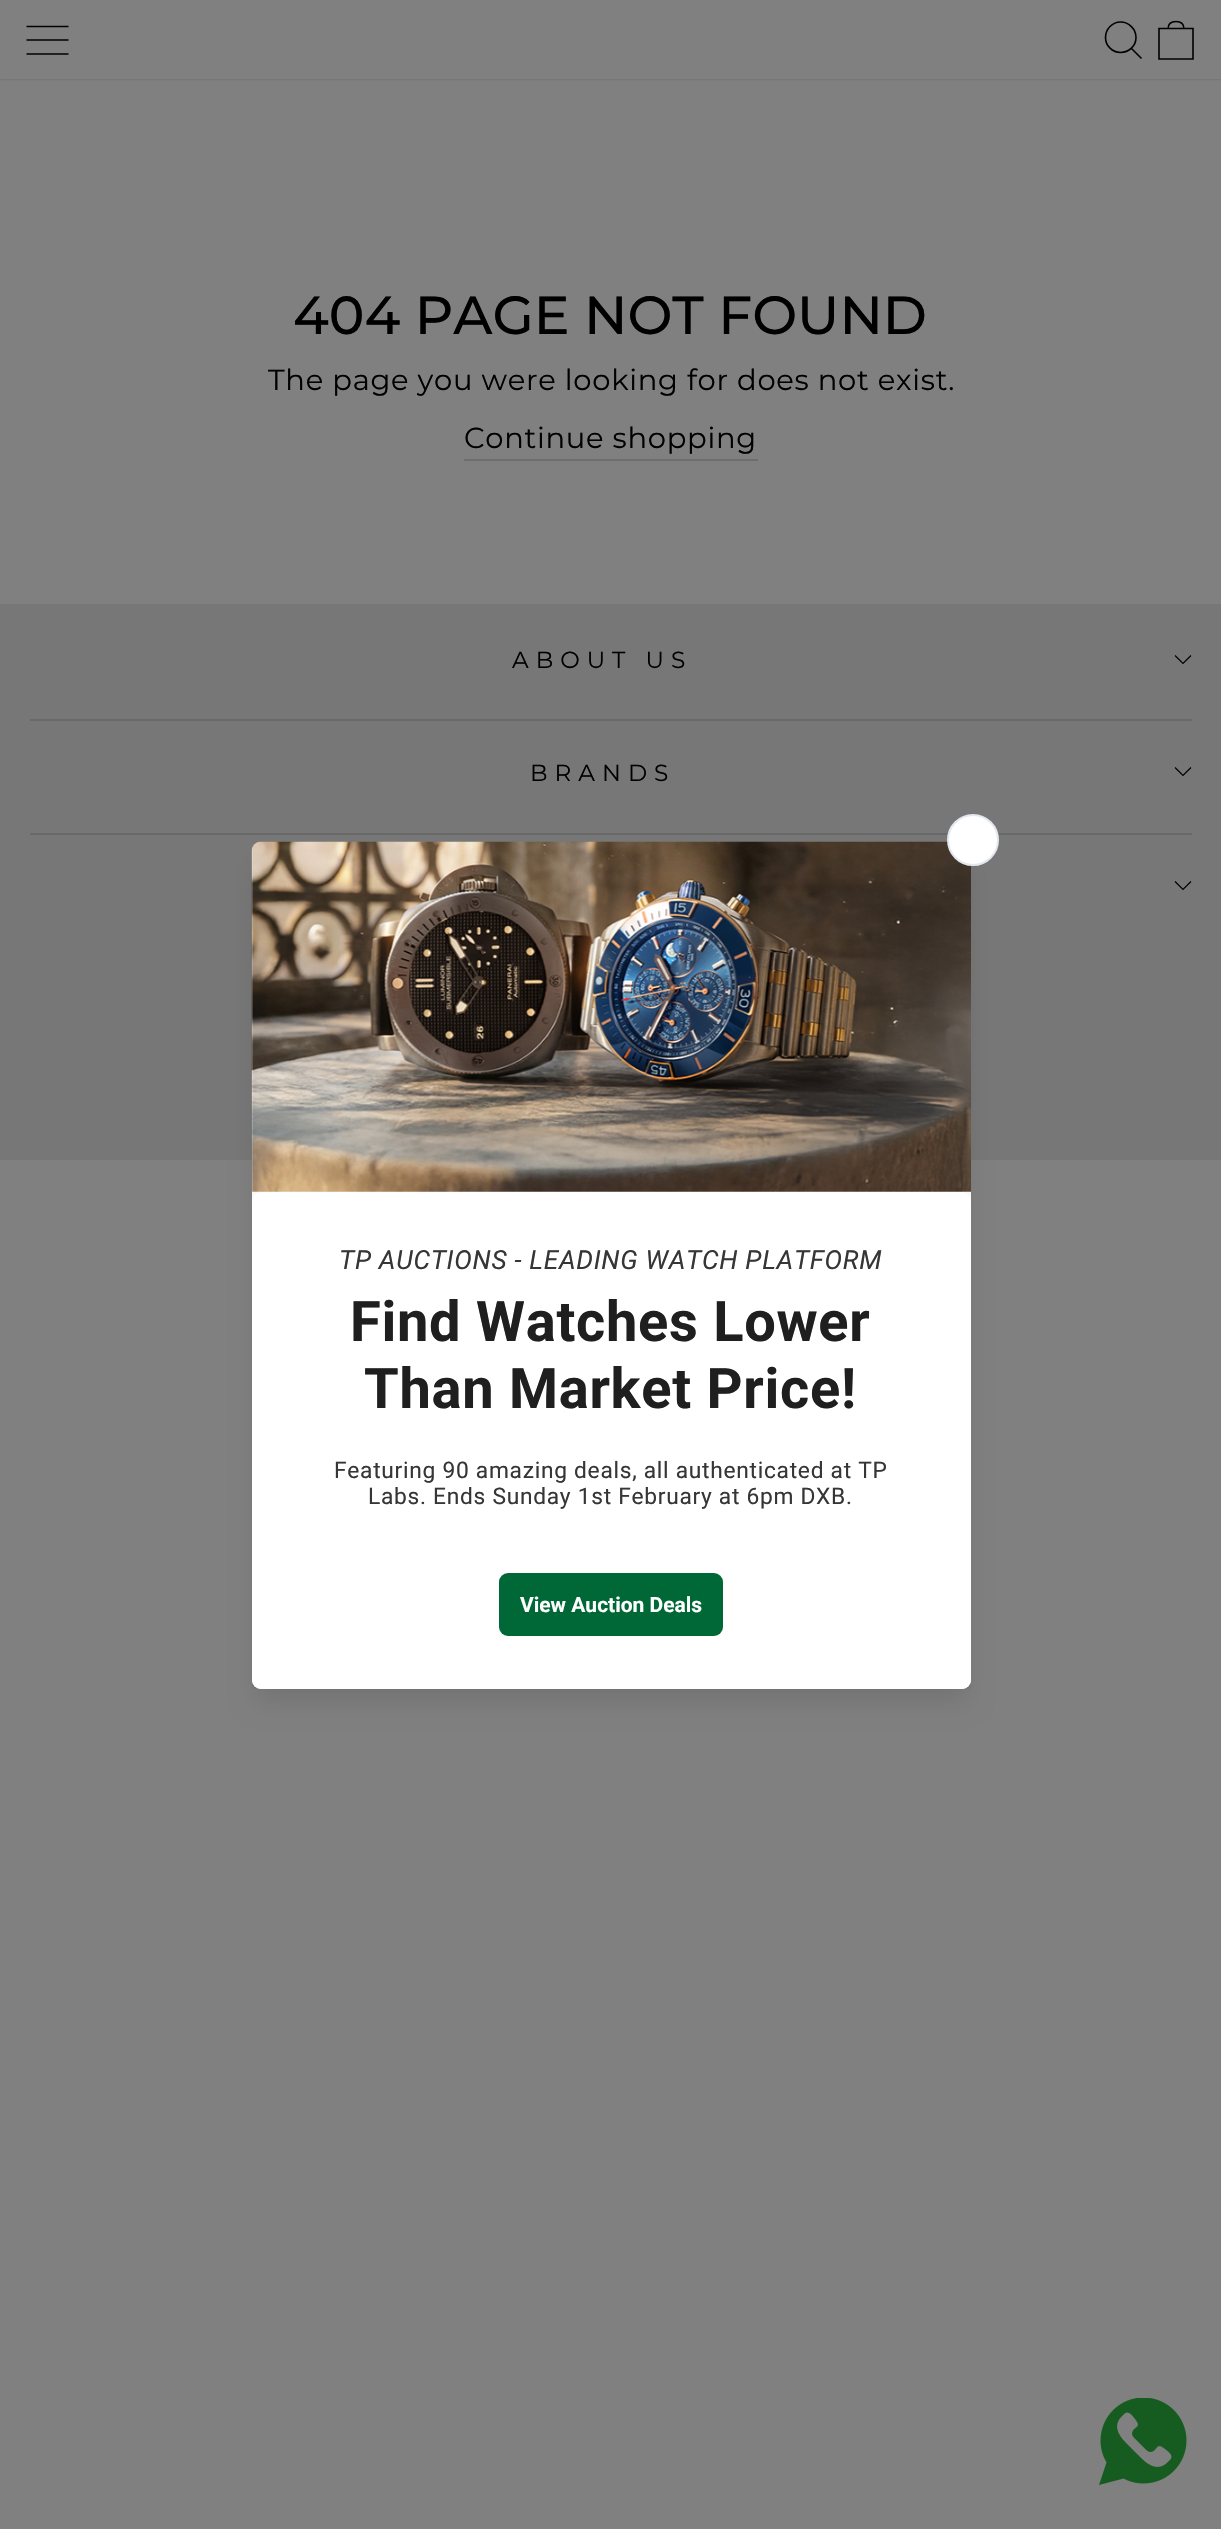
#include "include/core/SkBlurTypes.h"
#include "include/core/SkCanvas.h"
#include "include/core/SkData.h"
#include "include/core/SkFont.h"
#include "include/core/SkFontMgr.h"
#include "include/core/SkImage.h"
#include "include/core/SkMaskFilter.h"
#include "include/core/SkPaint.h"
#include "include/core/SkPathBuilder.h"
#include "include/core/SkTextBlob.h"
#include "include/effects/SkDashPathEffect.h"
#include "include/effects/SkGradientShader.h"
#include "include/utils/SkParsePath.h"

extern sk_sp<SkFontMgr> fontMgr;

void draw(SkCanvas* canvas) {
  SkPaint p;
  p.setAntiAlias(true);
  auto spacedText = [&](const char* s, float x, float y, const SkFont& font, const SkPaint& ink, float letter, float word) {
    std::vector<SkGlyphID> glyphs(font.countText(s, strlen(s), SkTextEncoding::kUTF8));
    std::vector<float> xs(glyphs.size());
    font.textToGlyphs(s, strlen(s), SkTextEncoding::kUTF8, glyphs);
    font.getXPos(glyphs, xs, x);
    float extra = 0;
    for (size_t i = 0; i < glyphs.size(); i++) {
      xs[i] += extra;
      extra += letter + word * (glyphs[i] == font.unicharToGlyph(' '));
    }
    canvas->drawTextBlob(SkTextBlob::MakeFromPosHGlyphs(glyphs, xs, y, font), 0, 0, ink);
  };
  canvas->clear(SkColorSetRGB(128, 128, 128));
  p.setColor(SkColorSetARGB(51, 0, 0, 0));
  p.setMaskFilter(SkMaskFilter::MakeBlur(kNormal_SkBlurStyle, 1));
  canvas->drawRect(SkRect::MakeLTRB(0, 0, 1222, 79), p);
  p.setMaskFilter(nullptr);
  p.setColor(SkColorSetRGB(128, 128, 128));
  canvas->drawRect(SkRect::MakeLTRB(0, 0, 1221, 79), p);
  p.setStyle(SkPaint::kStroke_Style);
  p.setStrokeWidth(1.6f);
  p.setColor(SK_ColorBLACK);
  canvas->drawPath(SkPathBuilder().moveTo(26.5f, 26.5f).lineTo(68.5f, 26.5f).moveTo(26.5f, 40).lineTo(68.5f, 40).moveTo(26.5f, 54).lineTo(68.5f, 54).detach(), p);
  canvas->drawPath(SkPathBuilder().moveTo(1136, 37.5f).cubicTo(1136, 46, 1129, 52.5f, 1120.5f, 52.5f).cubicTo(1112.5f, 52.5f, 1105.5f, 46, 1105.5f, 37.5f).cubicTo(1105.5f, 29, 1112.5f, 22, 1120.5f, 22).cubicTo(1129, 22, 1136, 29, 1136, 37.5f).close().moveTo(1141.5f, 58.5f).lineTo(1131.5f, 48.5f).detach(), p);
  canvas->drawPath(SkPathBuilder().moveTo(1159, 28.5f).lineTo(1193, 28.5f).lineTo(1193, 59).lineTo(1159, 59).close().moveTo(1168, 29).cubicTo(1168, 23, 1171.5f, 21.5f, 1176, 21.5f).cubicTo(1180.5f, 21.5f, 1184, 23, 1184, 29).detach(), p);
  p.setStyle(SkPaint::kFill_Style);
  p.setColor(SkColorSetRGB(109, 109, 109));
  canvas->drawRect(SkRect::MakeLTRB(464, 459, 758, 461), p);
  p.setColor(SkColorSetRGB(119, 119, 119));
  canvas->drawRect(SkRect::MakeLTRB(0, 604, 1221, 1160), p);
  p.setStyle(SkPaint::kStroke_Style);
  p.setStrokeWidth(1.2f);
  p.setColor(SK_ColorBLACK);
  canvas->drawPath(SkPathBuilder().moveTo(1175, 655.5f).lineTo(1183, 663.5f).lineTo(1191, 655.5f).detach(), p);
  p.setStyle(SkPaint::kFill_Style);
  p.setColor(SkColorSetRGB(105, 105, 105));
  canvas->drawRect(SkRect::MakeLTRB(30, 719, 1192, 721), p);
  p.setStyle(SkPaint::kStroke_Style);
  p.setColor(SK_ColorBLACK);
  canvas->drawPath(SkPathBuilder().moveTo(1175, 767.5f).lineTo(1183, 775.5f).lineTo(1191, 767.5f).detach(), p);
  p.setStyle(SkPaint::kFill_Style);
  p.setColor(SkColorSetRGB(105, 105, 105));
  canvas->drawRect(SkRect::MakeLTRB(30, 833, 1192, 835), p);
  p.setStyle(SkPaint::kStroke_Style);
  p.setColor(SK_ColorBLACK);
  canvas->drawPath(SkPathBuilder().moveTo(1175, 881.5f).lineTo(1183, 889.5f).lineTo(1191, 881.5f).detach(), p);
  p.setStyle(SkPaint::kFill_Style);
  p.setColor(SkColorSetARGB(26, 0, 0, 0));
  p.setMaskFilter(SkMaskFilter::MakeBlur(kNormal_SkBlurStyle, 13));
  canvas->drawRoundRect(SkRect::MakeLTRB(257, 865, 966, 1701), 4, 4, p);
  p.setMaskFilter(nullptr);
  p.setColor(SK_ColorWHITE);
  canvas->drawRoundRect(SkRect::MakeLTRB(252, 842, 971, 1689), 9, 9, p);
  canvas->drawImageRect(SkImages::DeferredFromEncodedData(SkData::MakeFromFileName("images/1.png")), SkRect::MakeLTRB(251, 841, 971, 1192), SkSamplingOptions());
  canvas->drawCircle(973, 840, 25, p);
  p.setStyle(SkPaint::kStroke_Style);
  p.setStrokeWidth(2);
  p.setColor(SkColorSetRGB(226, 232, 240));
  canvas->drawCircle(973, 840, 25, p);
  canvas->save();
  canvas->clipRect(SkRect::MakeLTRB(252, 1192, 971, 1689));
  p.setStyle(SkPaint::kFill_Style);
  p.setColor(SkColorSetARGB(13, 0, 0, 0));
  p.setMaskFilter(SkMaskFilter::MakeBlur(kNormal_SkBlurStyle, 5));
  canvas->drawRoundRect(SkRect::MakeLTRB(256, 1202, 968, 1692), 5, 5, p);
  p.setMaskFilter(nullptr);
  p.setColor(SkColorSetARGB(31, 0, 0, 0));
  p.setMaskFilter(SkMaskFilter::MakeBlur(kNormal_SkBlurStyle, 17.5f));
  canvas->drawRoundRect(SkRect::MakeLTRB(257, 1197, 966, 1684), 4, 4, p);
  p.setMaskFilter(nullptr);
  canvas->restore();
  p.setColor(SK_ColorWHITE);
  canvas->drawRoundRect(SkRect::MakeLTRB(252, 1192, 971, 1689), 9, 9, p);
  p.setColor(SkColorSetRGB(0, 104, 55));
  canvas->drawRoundRect(SkRect::MakeLTRB(499, 1573, 723, 1636), 9, 9, p);
  canvas->drawImageRect(SkImages::DeferredFromEncodedData(SkData::MakeFromFileName("images/2.png")), SkRect::MakeLTRB(1099, 2398, 1187, 2485), SkSamplingOptions());
  SkFont font1(fontMgr->matchFamilyStyle("Montserrat", SkFontStyle(500, SkFontStyle::kNormal_Width, SkFontStyle::kUpright_Slant)), 53.5f);
  font1.setSubpixel(true);
  p.setColor(SK_ColorBLACK);
  canvas->drawString("404 PAGE NOT FOUND", 293, 334, font1, p);
  SkFont font2(fontMgr->matchFamilyStyle("Montserrat", SkFontStyle::Normal()), 29);
  font2.setSubpixel(true);
  spacedText("The page you were looking for does not exist.", 268, 390, font2, p, 0.72f, 0);
  spacedText("Continue shopping", 464, 448, font2, p, 0.72f, 0);
  SkFont font3(fontMgr->matchFamilyStyle("Montserrat", SkFontStyle::Normal()), 23.25f);
  font3.setSubpixel(true);
  spacedText("ABOUT US", 512, 668, font3, p, 7, 0);
  spacedText("BRANDS", 530, 781, font3, p, 7, 0);
  SkFont font4(fontMgr->matchFamilyStyle("Roboto", SkFontStyle::Italic()), 26.25f);
  font4.setSubpixel(true);
  p.setColor(SkColorSetRGB(54, 54, 54));
  spacedText("TP AUCTIONS - LEADING WATCH PLATFORM", 339, 1269, font4, p, 0.72f, 0);
  SkFont font5(fontMgr->matchFamilyStyle("Roboto", SkFontStyle::Bold()), 56);
  font5.setSubpixel(true);
  p.setColor(SkColorSetRGB(31, 31, 31));
  spacedText("Find Watches Lower", 350, 1341, font5, p, 0.72f, 0);
  spacedText("Than Market Price!", 364, 1408, font5, p, 0.72f, 0);
  SkFont font6(fontMgr->matchFamilyStyle("Roboto", SkFontStyle::Normal()), 22.75f);
  font6.setSubpixel(true);
  p.setColor(SkColorSetRGB(54, 54, 54));
  spacedText("Featuring 90 amazing deals, all authenticated at TP", 334, 1478, font6, p, 0.72f, 0);
  spacedText("Labs. Ends Sunday 1st February at 6pm DXB.", 368, 1504, font6, p, 0.72f, 0);
  SkFont font7(fontMgr->matchFamilyStyle("Roboto", SkFontStyle::Bold()), 21);
  font7.setSubpixel(true);
  p.setColor(SK_ColorWHITE);
  canvas->drawString("View Auction Deals", 520, 1612, font7, p);
}
